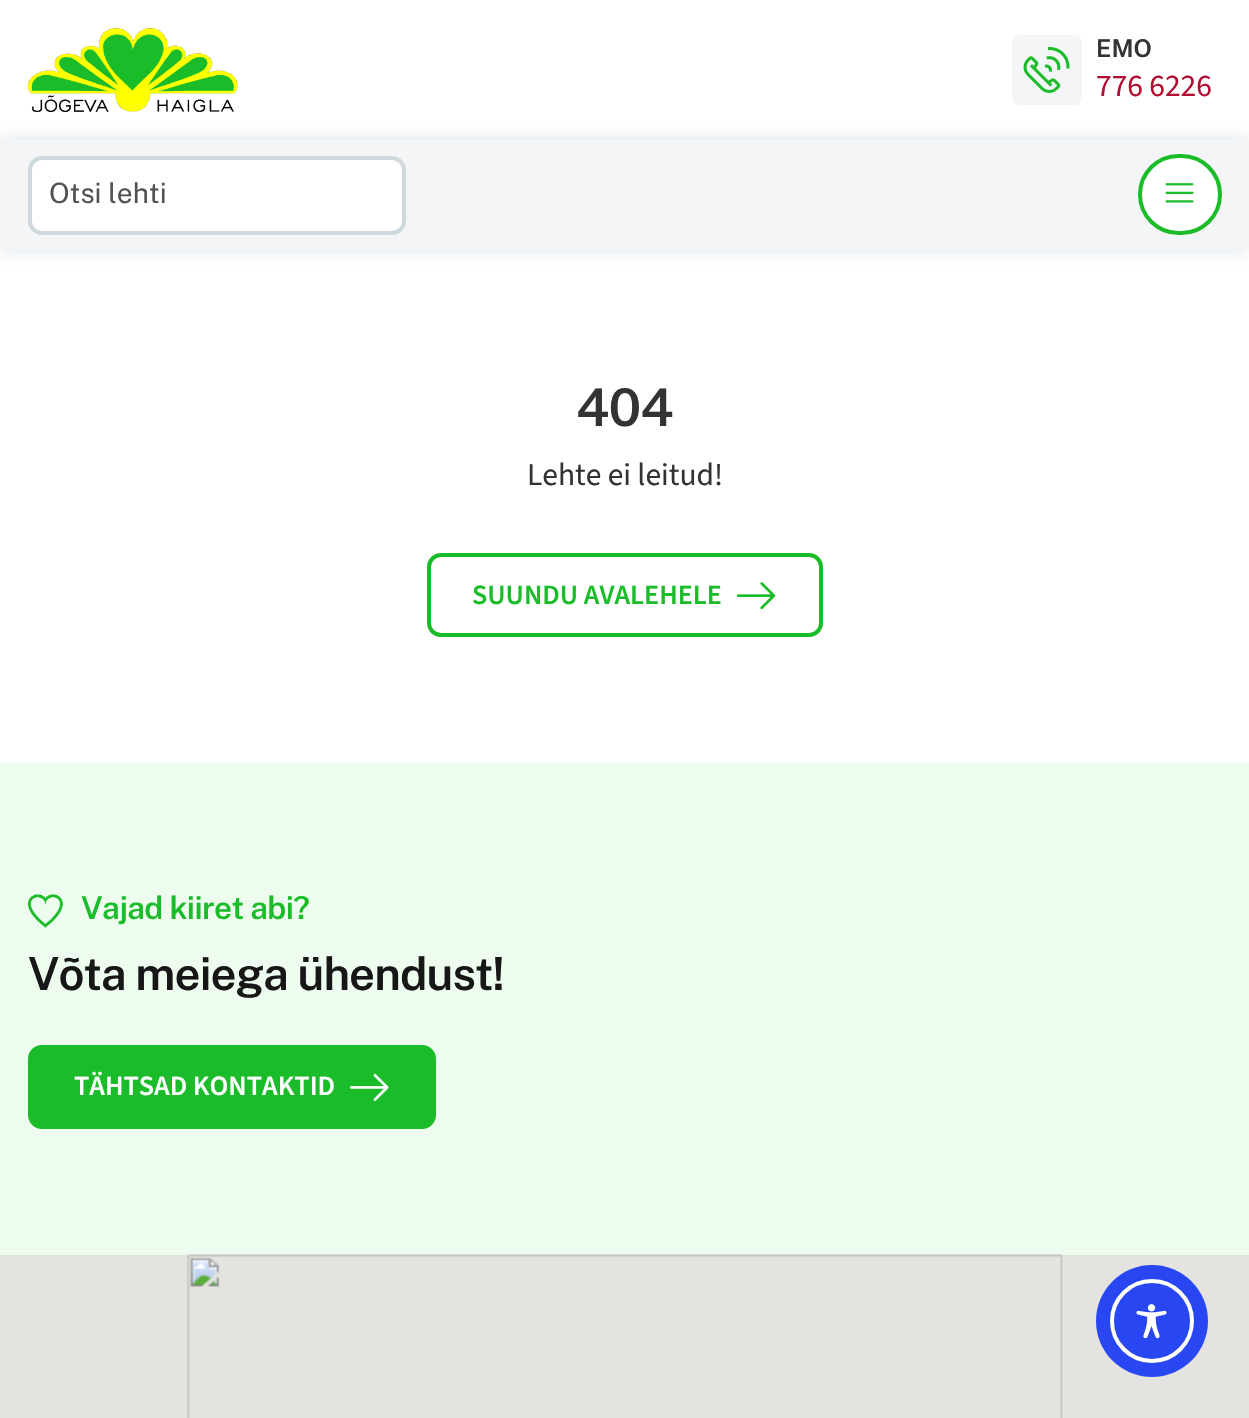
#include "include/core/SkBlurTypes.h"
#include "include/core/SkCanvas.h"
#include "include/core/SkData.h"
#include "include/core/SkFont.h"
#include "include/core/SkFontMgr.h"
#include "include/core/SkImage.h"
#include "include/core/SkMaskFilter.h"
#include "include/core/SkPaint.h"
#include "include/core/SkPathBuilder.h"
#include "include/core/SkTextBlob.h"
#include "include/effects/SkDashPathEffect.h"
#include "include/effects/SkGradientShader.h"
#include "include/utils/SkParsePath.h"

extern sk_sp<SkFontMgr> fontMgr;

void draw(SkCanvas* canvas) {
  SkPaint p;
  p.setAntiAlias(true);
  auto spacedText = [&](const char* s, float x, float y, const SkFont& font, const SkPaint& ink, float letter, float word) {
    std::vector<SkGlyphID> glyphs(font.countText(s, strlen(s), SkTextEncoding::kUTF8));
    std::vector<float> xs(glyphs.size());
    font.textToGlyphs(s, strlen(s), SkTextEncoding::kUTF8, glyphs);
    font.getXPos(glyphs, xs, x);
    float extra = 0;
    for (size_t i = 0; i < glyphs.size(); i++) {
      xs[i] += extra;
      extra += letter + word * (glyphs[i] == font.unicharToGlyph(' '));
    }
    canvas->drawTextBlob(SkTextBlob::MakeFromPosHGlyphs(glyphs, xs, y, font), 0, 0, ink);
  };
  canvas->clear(SK_ColorWHITE);
  canvas->drawImageRect(SkImages::DeferredFromEncodedData(SkData::MakeFromFileName("images/1.png")), SkRect::MakeLTRB(28, 28, 238, 112), SkSamplingOptions());
  p.setColor(SkColorSetRGB(243, 245, 247));
  canvas->drawRoundRect(SkRect::MakeLTRB(1012, 35, 1082, 105), 7, 7, p);
  canvas->drawImageRect(SkImages::DeferredFromEncodedData(SkData::MakeFromFileName("images/2.png")), SkRect::MakeLTRB(1023, 47, 1070, 93), SkSamplingOptions());
  p.setColor(SkColorSetARGB(97, 159, 177, 188));
  p.setMaskFilter(SkMaskFilter::MakeBlur(kNormal_SkBlurStyle, 9));
  canvas->drawRect(SkRect::MakeLTRB(0, 140, 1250, 249), p);
  p.setMaskFilter(nullptr);
  p.setColor(SkColorSetRGB(243, 245, 247));
  canvas->drawRect(SkRect::MakeLTRB(0, 140, 1249, 249), p);
  p.setColor(SK_ColorWHITE);
  canvas->drawRoundRect(SkRect::MakeLTRB(28, 156, 406, 235), 14, 14, p);
  p.setStyle(SkPaint::kStroke_Style);
  p.setStrokeWidth(4);
  p.setColor(SkColorSetARGB(128, 159, 177, 188));
  canvas->drawRoundRect(SkRect::MakeLTRB(30, 158, 404, 233), 12, 12, p);
  p.setStyle(SkPaint::kFill_Style);
  p.setColor(SK_ColorWHITE);
  canvas->drawRoundRect(SkRect::MakeLTRB(1140, 156, 1220, 233), 38.5f, 38.5f, p);
  p.setStyle(SkPaint::kStroke_Style);
  p.setColor(SkColorSetRGB(27, 188, 41));
  canvas->drawRoundRect(SkRect::MakeLTRB(1140, 156, 1220, 233), 38.5f, 38.5f, p);
  canvas->drawImageRect(SkImages::DeferredFromEncodedData(SkData::MakeFromFileName("images/3.png")), SkRect::MakeLTRB(1165, 183, 1194, 203), SkSamplingOptions());
  canvas->drawRoundRect(SkRect::MakeLTRB(429, 555, 821, 635), 12, 12, p);
  canvas->drawImageRect(SkImages::DeferredFromEncodedData(SkData::MakeFromFileName("images/4.png")), SkRect::MakeLTRB(736, 582, 776, 610), SkSamplingOptions());
  p.setStyle(SkPaint::kFill_Style);
  p.setColor(SkColorSetRGB(237, 252, 238));
  canvas->drawRect(SkRect::MakeLTRB(0, 763, 1249, 1255), p);
  canvas->drawImageRect(SkImages::DeferredFromEncodedData(SkData::MakeFromFileName("images/5.png")), SkRect::MakeLTRB(28, 894, 63, 928), SkSamplingOptions());
  p.setColor(SkColorSetRGB(27, 188, 41));
  canvas->drawRoundRect(SkRect::MakeLTRB(30, 1047, 434, 1127), 12, 12, p);
  p.setStyle(SkPaint::kStroke_Style);
  canvas->drawRoundRect(SkRect::MakeLTRB(30, 1047, 434, 1127), 12, 12, p);
  canvas->drawImageRect(SkImages::DeferredFromEncodedData(SkData::MakeFromFileName("images/6.png")), SkRect::MakeLTRB(350, 1073, 389, 1101), SkSamplingOptions());
  canvas->drawImageRect(SkImages::DeferredFromEncodedData(SkData::MakeFromFileName("images/7.png")), SkRect::MakeLTRB(0, 1254, 1249, 1418), SkSamplingOptions());
  p.setStyle(SkPaint::kFill_Style);
  p.setColor(SkColorSetRGB(40, 71, 243));
  canvas->drawCircle(1152, 1321, 56, p);
  p.setStyle(SkPaint::kStroke_Style);
  p.setColor(SK_ColorWHITE);
  canvas->drawCircle(1152, 1321, 40, p);
  canvas->drawImageRect(SkImages::DeferredFromEncodedData(SkData::MakeFromFileName("images/8.png")), SkRect::MakeLTRB(1136, 1304, 1167, 1339), SkSamplingOptions());
  SkFont font1(fontMgr->matchFamilyStyle("Public Sans", SkFontStyle(600, SkFontStyle::kNormal_Width, SkFontStyle::kUpright_Slant)), 24.5f);
  font1.setSubpixel(true);
  p.setStyle(SkPaint::kFill_Style);
  p.setColor(SkColorSetRGB(51, 51, 51));
  canvas->drawString("EMO", 1096, 57, font1, p);
  SkFont font2(fontMgr->matchFamilyStyle("Source Sans 3", SkFontStyle::Normal()), 31.5f);
  font2.setSubpixel(true);
  p.setColor(SkColorSetRGB(178, 13, 48));
  canvas->drawString("776 6226", 1096, 96, font2, p);
  SkFont font3(fontMgr->matchFamilyStyle("Public Sans", SkFontStyle::Normal()), 28);
  font3.setSubpixel(true);
  p.setColor(SkColorSetRGB(82, 82, 82));
  canvas->drawString("Otsi lehti", 49, 203, font3, p);
  SkFont font4(fontMgr->matchFamilyStyle("Public Sans", SkFontStyle(600, SkFontStyle::kNormal_Width, SkFontStyle::kUpright_Slant)), 52);
  font4.setSubpixel(true);
  p.setColor(SkColorSetRGB(51, 51, 51));
  spacedText("404", 576, 426, font4, p, -1, 0);
  canvas->drawString("Lehte ei leitud!", 527, 485, font2, p);
  SkFont font5(fontMgr->matchFamilyStyle("Source Sans 3", SkFontStyle(600, SkFontStyle::kNormal_Width, SkFontStyle::kUpright_Slant)), 28);
  font5.setSubpixel(true);
  p.setColor(SkColorSetRGB(27, 188, 41));
  canvas->drawString("SUUNDU AVALEHELE", 472, 604, font5, p);
  SkFont font6(fontMgr->matchFamilyStyle("Public Sans", SkFontStyle(600, SkFontStyle::kNormal_Width, SkFontStyle::kUpright_Slant)), 31.5f);
  font6.setSubpixel(true);
  spacedText("Vajad kiiret abi?", 81, 919, font6, p, -0.6f, 0);
  SkFont font7(fontMgr->matchFamilyStyle("Public Sans", SkFontStyle(600, SkFontStyle::kNormal_Width, SkFontStyle::kUpright_Slant)), 45.5f);
  font7.setSubpixel(true);
  p.setColor(SkColorSetRGB(23, 23, 23));
  spacedText("Võta meiega ühendust!", 28, 990, font7, p, -0.9f, 0);
  p.setColor(SK_ColorWHITE);
  canvas->drawString("TÄHTSAD KONTAKTID", 74, 1095, font5, p);
}
